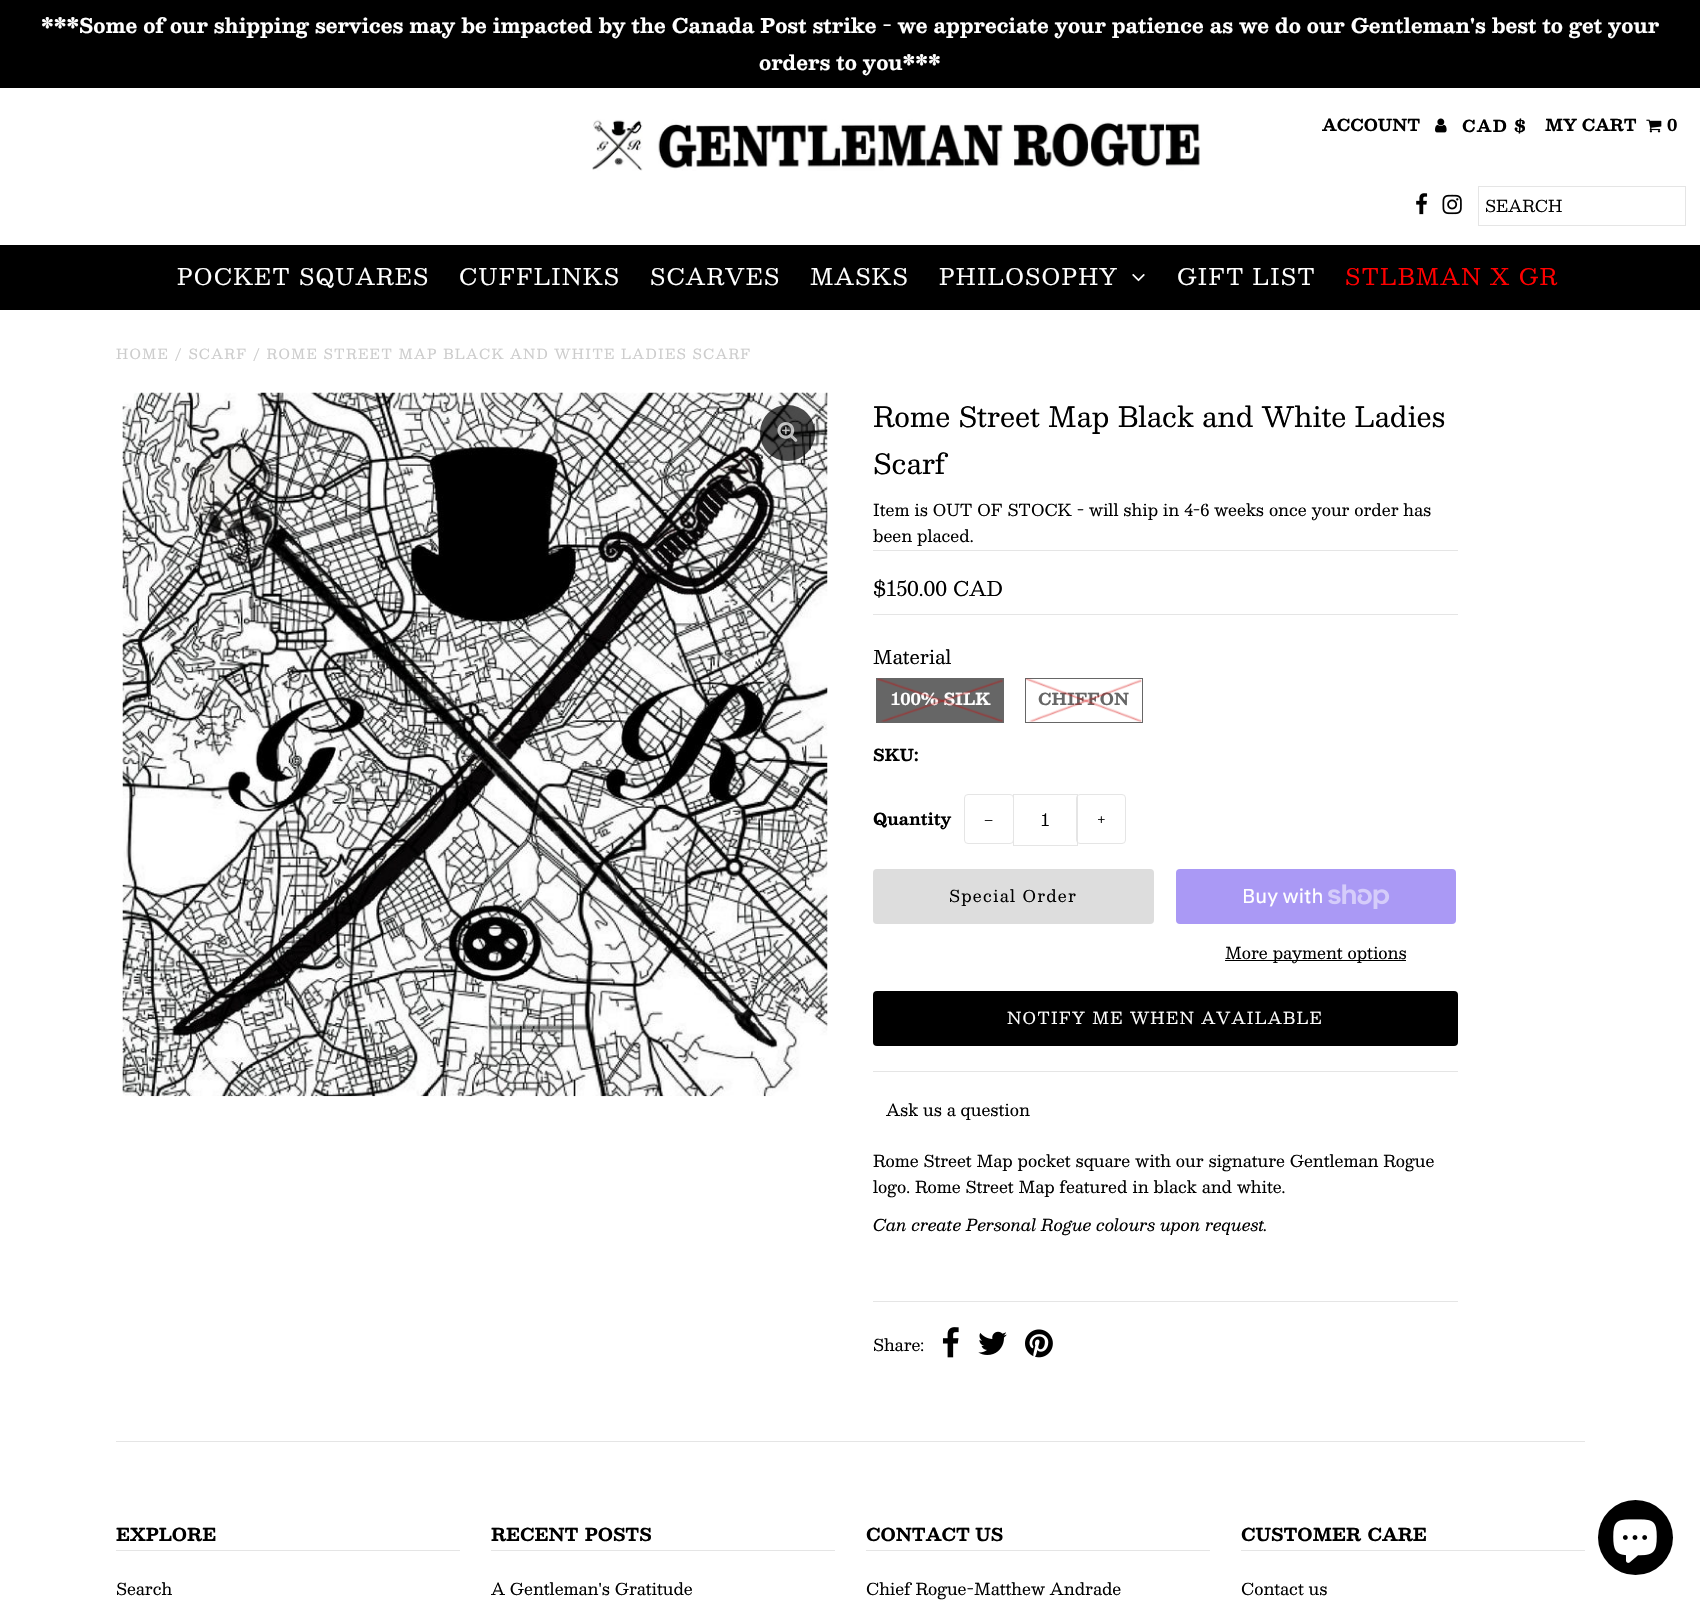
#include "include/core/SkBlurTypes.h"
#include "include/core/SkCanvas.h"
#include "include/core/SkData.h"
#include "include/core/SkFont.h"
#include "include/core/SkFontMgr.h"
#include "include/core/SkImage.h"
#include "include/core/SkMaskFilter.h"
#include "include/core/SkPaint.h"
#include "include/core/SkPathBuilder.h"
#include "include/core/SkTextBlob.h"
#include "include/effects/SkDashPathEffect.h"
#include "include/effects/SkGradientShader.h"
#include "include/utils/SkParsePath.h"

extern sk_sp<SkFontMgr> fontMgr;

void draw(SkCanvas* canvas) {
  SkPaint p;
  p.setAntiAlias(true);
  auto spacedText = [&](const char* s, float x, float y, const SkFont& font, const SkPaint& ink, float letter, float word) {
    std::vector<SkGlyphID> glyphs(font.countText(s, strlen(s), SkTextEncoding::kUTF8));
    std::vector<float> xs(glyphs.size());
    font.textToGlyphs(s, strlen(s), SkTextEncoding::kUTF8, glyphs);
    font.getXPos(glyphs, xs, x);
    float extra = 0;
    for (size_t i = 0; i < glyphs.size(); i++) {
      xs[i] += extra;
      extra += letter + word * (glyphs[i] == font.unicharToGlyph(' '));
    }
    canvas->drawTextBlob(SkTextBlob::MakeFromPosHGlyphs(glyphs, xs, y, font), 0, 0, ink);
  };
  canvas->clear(SK_ColorWHITE);
  p.setColor(SK_ColorBLACK);
  canvas->drawRect(SkRect::MakeLTRB(0, 0, 1700, 88), p);
  canvas->drawImageRect(SkImages::DeferredFromEncodedData(SkData::MakeFromFileName("images/1.png")), SkRect::MakeLTRB(592, 119, 1200, 171), SkSamplingOptions());
  canvas->drawImageRect(SkImages::DeferredFromEncodedData(SkData::MakeFromFileName("images/2.png")), SkRect::MakeLTRB(1435, 118, 1447, 133), SkSamplingOptions());
  canvas->drawImageRect(SkImages::DeferredFromEncodedData(SkData::MakeFromFileName("images/3.png")), SkRect::MakeLTRB(1646, 119, 1662, 133), SkSamplingOptions());
  canvas->drawImageRect(SkImages::DeferredFromEncodedData(SkData::MakeFromFileName("images/4.png")), SkRect::MakeLTRB(1416, 193, 1428, 215), SkSamplingOptions());
  canvas->drawImageRect(SkImages::DeferredFromEncodedData(SkData::MakeFromFileName("images/5.png")), SkRect::MakeLTRB(1442, 194, 1462, 215), SkSamplingOptions());
  p.setStyle(SkPaint::kStroke_Style);
  p.setStrokeWidth(1);
  p.setColor(SkColorSetRGB(229, 229, 229));
  canvas->drawRect(SkRect::MakeLTRB(1478.5f, 186.5f, 1685.5f, 225.5f), p);
  p.setStyle(SkPaint::kFill_Style);
  p.setColor(SK_ColorBLACK);
  canvas->drawRect(SkRect::MakeLTRB(0, 245, 1700, 310), p);
  canvas->drawImageRect(SkImages::DeferredFromEncodedData(SkData::MakeFromFileName("images/6.png")), SkRect::MakeLTRB(1132, 274, 1145, 282), SkSamplingOptions());
  canvas->drawImageRect(SkImages::DeferredFromEncodedData(SkData::MakeFromFileName("images/7.png")), SkRect::MakeLTRB(122, 392, 828, 1097), SkSamplingOptions());
  p.setColor(SkColorSetARGB(179, 0, 0, 0));
  canvas->drawRoundRect(SkRect::MakeLTRB(760, 405, 815, 461), 27.5f, 27.5f, p);
  canvas->drawImageRect(SkImages::DeferredFromEncodedData(SkData::MakeFromFileName("images/8.png")), SkRect::MakeLTRB(777, 422, 798, 442), SkSamplingOptions());
  p.setColor(SkColorSetRGB(229, 229, 229));
  canvas->drawRect(SkRect::MakeLTRB(873, 550, 1458, 551), p);
  canvas->drawRect(SkRect::MakeLTRB(873, 1071, 1458, 1072), p);
  canvas->drawRect(SkRect::MakeLTRB(873, 614, 1458, 615), p);
  p.setColor(SkColorSetRGB(102, 102, 102));
  canvas->drawRect(SkRect::MakeLTRB(876, 678, 1004, 723), p);
  p.setStyle(SkPaint::kStroke_Style);
  canvas->drawRect(SkRect::MakeLTRB(1025.5f, 678.5f, 1142.5f, 722.5f), p);
  p.setColor(SkColorSetRGB(229, 229, 229));
  canvas->drawRoundRect(SkRect::MakeLTRB(964.5f, 794.5f, 1013.5f, 843.5f), 3.5f, 3.5f, p);
  canvas->drawRect(SkRect::MakeLTRB(1013.5f, 794.5f, 1077.5f, 845.5f), p);
  canvas->drawRoundRect(SkRect::MakeLTRB(1076.5f, 794.5f, 1125.5f, 843.5f), 3.5f, 3.5f, p);
  p.setStyle(SkPaint::kFill_Style);
  p.setColor(SkColorSetRGB(221, 221, 221));
  canvas->drawRoundRect(SkRect::MakeLTRB(873, 869, 1154, 924), 4, 4, p);
  p.setColor(SkColorSetRGB(170, 153, 245));
  canvas->drawRoundRect(SkRect::MakeLTRB(1176, 869, 1456, 924), 4, 4, p);
  canvas->drawImageRect(SkImages::DeferredFromEncodedData(SkData::MakeFromFileName("images/11.png")), SkRect::MakeLTRB(1328, 884, 1390, 909), SkSamplingOptions());
  p.setColor(SK_ColorBLACK);
  canvas->drawRect(SkRect::MakeLTRB(1225, 960, 1406, 961), p);
  canvas->drawRoundRect(SkRect::MakeLTRB(873, 991, 1458, 1046), 4, 4, p);
  p.setColor(SkColorSetRGB(229, 229, 229));
  canvas->drawRect(SkRect::MakeLTRB(873, 1301, 1458, 1302), p);
  canvas->drawImageRect(SkImages::DeferredFromEncodedData(SkData::MakeFromFileName("images/12.png")), SkRect::MakeLTRB(942, 1327, 959, 1358), SkSamplingOptions());
  canvas->drawImageRect(SkImages::DeferredFromEncodedData(SkData::MakeFromFileName("images/13.png")), SkRect::MakeLTRB(978, 1331, 1007, 1355), SkSamplingOptions());
  canvas->drawImageRect(SkImages::DeferredFromEncodedData(SkData::MakeFromFileName("images/14.png")), SkRect::MakeLTRB(1025, 1329, 1053, 1358), SkSamplingOptions());
  canvas->drawRect(SkRect::MakeLTRB(116, 1441, 1585, 1442), p);
  canvas->drawRect(SkRect::MakeLTRB(116, 1550, 460, 1551), p);
  canvas->drawRect(SkRect::MakeLTRB(491, 1550, 835, 1551), p);
  canvas->drawRect(SkRect::MakeLTRB(866, 1550, 1210, 1551), p);
  canvas->drawRect(SkRect::MakeLTRB(1241, 1550, 1585, 1551), p);
  p.setColor(SK_ColorBLACK);
  canvas->drawCircle(1635.5f, 1537.5f, 37.5f, p);
  canvas->drawImageRect(SkImages::DeferredFromEncodedData(SkData::MakeFromFileName("images/15.png")), SkRect::MakeLTRB(1613, 1519, 1657, 1563), SkSamplingOptions());
  SkFont font1(fontMgr->matchFamilyStyle("Besley", SkFontStyle::Bold()), 20);
  font1.setSubpixel(true);
  p.setColor(SK_ColorWHITE);
  canvas->drawString("***Some of our shipping services may be impacted by the Canada Post strike - we appreciate your patience as we do our Gentleman's best to get your", 41, 33, font1, p);
  canvas->drawString("orders to you***", 759, 70, font1, p);
  SkFont font2(fontMgr->matchFamilyStyle("Besley", SkFontStyle::Bold()), 16.25f);
  font2.setSubpixel(true);
  p.setColor(SK_ColorBLACK);
  canvas->drawString("ACCOUNT", 1322, 131, font2, p);
  spacedText("CAD $", 1462, 132, font2, p, 1.25f, 0);
  canvas->drawString("MY CART", 1545, 131, font2, p);
  canvas->drawString("0", 1667, 131, font2, p);
  SkFont font3(fontMgr->matchFamilyStyle("Besley", SkFontStyle::Normal()), 16.25f);
  font3.setSubpixel(true);
  canvas->drawString("SEARCH", 1485, 212, font3, p);
  SkFont font4(fontMgr->matchFamilyStyle("Besley", SkFontStyle::Normal()), 22.5f);
  font4.setSubpixel(true);
  p.setColor(SK_ColorWHITE);
  spacedText("POCKET SQUARES", 177, 285, font4, p, 1.25f, 0);
  spacedText("CUFFLINKS", 459, 285, font4, p, 1.25f, 0);
  spacedText("SCARVES", 650, 285, font4, p, 1.25f, 0);
  spacedText("MASKS", 810, 285, font4, p, 1.25f, 0);
  spacedText("PHILOSOPHY", 939, 285, font4, p, 1.25f, 0);
  spacedText("GIFT LIST", 1177, 285, font4, p, 1.25f, 0);
  p.setColor(SkColorSetRGB(255, 0, 0));
  spacedText("STLBMAN X GR", 1345, 285, font4, p, 1.25f, 0);
  SkFont font5(fontMgr->matchFamilyStyle("Besley", SkFontStyle::Normal()), 13.75f);
  font5.setSubpixel(true);
  p.setColor(SkColorSetRGB(204, 204, 204));
  spacedText("HOME / SCARF / ROME STREET MAP BLACK AND WHITE LADIES SCARF", 116, 359, font5, p, 1.25f, 0);
  SkFont font6(fontMgr->matchFamilyStyle("Besley", SkFontStyle::Normal()), 27.5f);
  font6.setSubpixel(true);
  p.setColor(SK_ColorBLACK);
  canvas->drawString("Rome Street Map Black and White Ladies", 873, 427, font6, p);
  canvas->drawString("Scarf", 873, 474, font6, p);
  canvas->drawString("Item is OUT OF STOCK - will ship in 4-6 weeks once your order has", 873, 516, font3, p);
  canvas->drawString("been placed.", 873, 542, font3, p);
  SkFont font7(fontMgr->matchFamilyStyle("Besley", SkFontStyle::Normal()), 20);
  font7.setSubpixel(true);
  canvas->drawString("$150.00 CAD", 873, 596, font7, p);
  SkFont font8(fontMgr->matchFamilyStyle("Besley", SkFontStyle::Normal()), 18.75f);
  font8.setSubpixel(true);
  canvas->drawString("Material", 873, 664, font8, p);
  p.setColor(SK_ColorWHITE);
  canvas->drawString("100% SILK", 891, 705, font2, p);
  canvas->drawImageRect(SkImages::DeferredFromEncodedData(SkData::MakeFromFileName("images/9.png")), SkRect::MakeLTRB(877, 678, 1003, 722), SkSamplingOptions());
  p.setColor(SkColorSetRGB(102, 102, 102));
  canvas->drawString("CHIFFON", 1038, 705, font2, p);
  canvas->drawImageRect(SkImages::DeferredFromEncodedData(SkData::MakeFromFileName("images/10.png")), SkRect::MakeLTRB(1026, 678, 1142, 722), SkSamplingOptions());
  p.setColor(SK_ColorBLACK);
  canvas->drawString("SKU:", 873, 761, font2, p);
  canvas->drawString("Quantity", 873, 825, font2, p);
  SkFont font9(fontMgr->matchFamilyStyle("Liberation Serif", SkFontStyle::Normal()), 16.25f);
  font9.setSubpixel(true);
  spacedText("−", 984, 826, font9, p, 1.25f, 0);
  canvas->drawString("1", 1041, 826, font3, p);
  spacedText("+", 1097, 826, font3, p, 1.25f, 0);
  spacedText("Special Order", 949, 902, font3, p, 1.25f, 0);
  SkFont font10(fontMgr->matchFamilyStyle("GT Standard", SkFontStyle::Normal()), 20);
  font10.setSubpixel(true);
  p.setColor(SK_ColorWHITE);
  canvas->drawString("Buy with", 1242, 903, font10, p);
  p.setColor(SK_ColorBLACK);
  canvas->drawString("More payment options", 1225, 959, font3, p);
  p.setColor(SK_ColorWHITE);
  spacedText("NOTIFY ME WHEN AVAILABLE", 1007, 1024, font3, p, 1.25f, 0);
  p.setColor(SK_ColorBLACK);
  canvas->drawString("Ask us a question", 886, 1116, font3, p);
  canvas->drawString("Rome Street Map pocket square with our signature Gentleman Rogue", 873, 1167, font3, p);
  canvas->drawString("logo. Rome Street Map featured in black and white.", 873, 1193, font3, p);
  SkFont font11(fontMgr->matchFamilyStyle("Besley", SkFontStyle::Italic()), 16.25f);
  font11.setSubpixel(true);
  canvas->drawString("Can create Personal Rogue colours upon request.", 873, 1231, font11, p);
  canvas->drawString("Share:", 873, 1351, font3, p);
  SkFont font12(fontMgr->matchFamilyStyle("Besley", SkFontStyle::Bold()), 17.5f);
  font12.setSubpixel(true);
  canvas->drawString("EXPLORE", 116, 1541, font12, p);
  canvas->drawString("Search", 116, 1595, font3, p);
  spacedText("RECENT POSTS", 491, 1541, font12, p, 0, 1);
  canvas->drawString("A Gentleman's Gratitude", 491, 1595, font3, p);
  canvas->drawString("CONTACT US", 866, 1541, font12, p);
  canvas->drawString("Chief Rogue-Matthew Andrade", 866, 1595, font3, p);
  spacedText("CUSTOMER CARE", 1241, 1541, font12, p, 0, 1);
  canvas->drawString("Contact us", 1241, 1595, font3, p);
}
